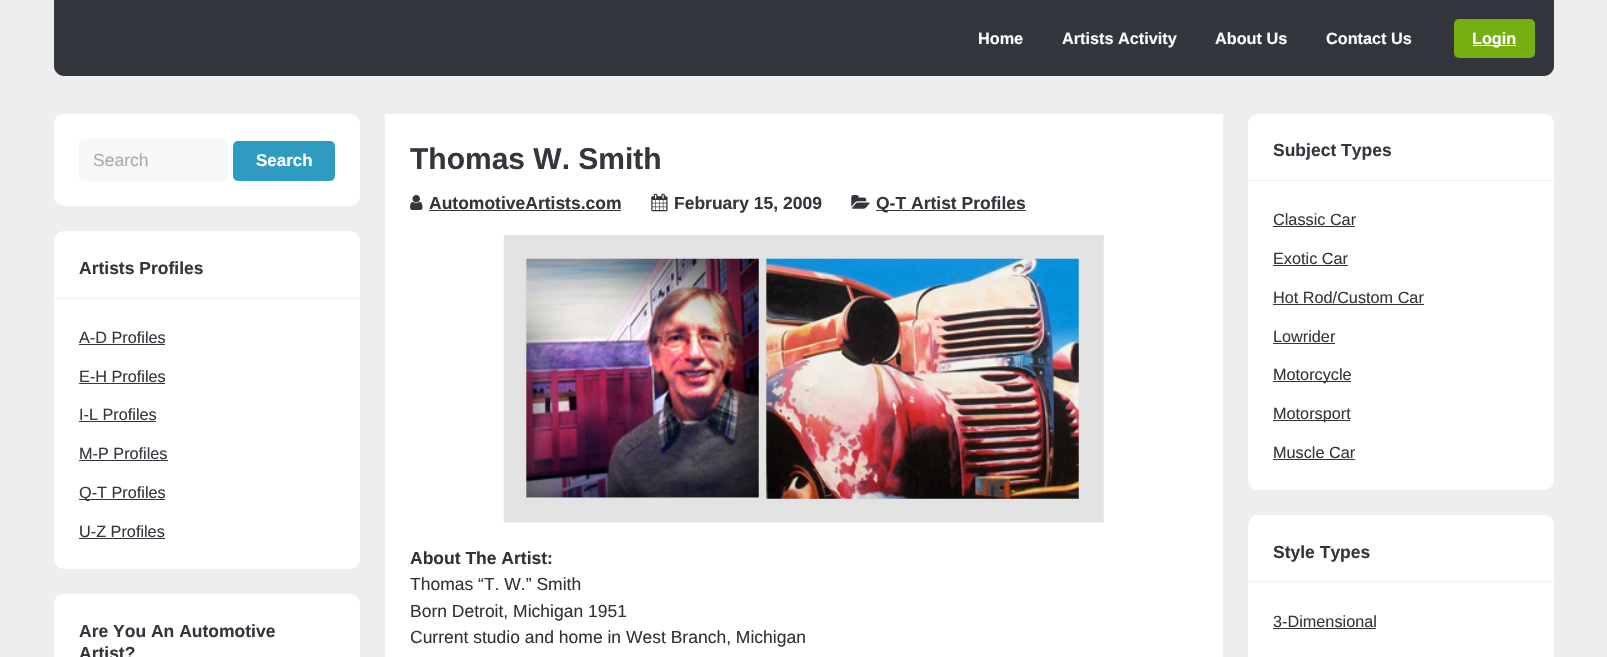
#include "include/core/SkBlurTypes.h"
#include "include/core/SkCanvas.h"
#include "include/core/SkData.h"
#include "include/core/SkFont.h"
#include "include/core/SkFontMgr.h"
#include "include/core/SkImage.h"
#include "include/core/SkMaskFilter.h"
#include "include/core/SkPaint.h"
#include "include/core/SkPathBuilder.h"
#include "include/core/SkTextBlob.h"
#include "include/effects/SkDashPathEffect.h"
#include "include/effects/SkGradientShader.h"
#include "include/utils/SkParsePath.h"

extern sk_sp<SkFontMgr> fontMgr;

void draw(SkCanvas* canvas) {
  SkPaint p;
  p.setAntiAlias(true);
  canvas->clear(SkColorSetRGB(238, 238, 238));
  p.setColor(SkColorSetRGB(51, 54, 60));
  canvas->drawPath(SkPathBuilder().moveTo(54, 0).lineTo(1554, 0).lineTo(1554, 66).cubicTo(1554, 71.5f, 1549.5f, 76, 1544, 76).lineTo(64, 76).cubicTo(58.5f, 76, 54, 71.5f, 54, 66).close().detach(), p);
  p.setColor(SkColorSetRGB(119, 175, 18));
  canvas->drawRoundRect(SkRect::MakeLTRB(1454, 19, 1535, 58), 5, 5, p);
  p.setColor(SK_ColorWHITE);
  canvas->drawRect(SkRect::MakeLTRB(1473, 45, 1516, 46), p);
  canvas->drawRoundRect(SkRect::MakeLTRB(54, 114, 360, 206), 10, 10, p);
  p.setColor(SkColorSetRGB(247, 247, 247));
  canvas->drawRoundRect(SkRect::MakeLTRB(79, 139, 228, 181), 5, 5, p);
  p.setColor(SkColorSetRGB(47, 155, 193));
  canvas->drawRoundRect(SkRect::MakeLTRB(233, 141, 335, 181), 5, 5, p);
  p.setColor(SK_ColorWHITE);
  canvas->drawRoundRect(SkRect::MakeLTRB(54, 231, 360, 569), 10, 10, p);
  p.setColor(SkColorSetRGB(238, 238, 238));
  canvas->drawRect(SkRect::MakeLTRB(54, 298, 360, 299), p);
  p.setColor(SkColorSetRGB(51, 54, 60));
  canvas->drawRect(SkRect::MakeLTRB(79, 344, 165, 345), p);
  canvas->drawRect(SkRect::MakeLTRB(79, 383, 165, 384), p);
  canvas->drawRect(SkRect::MakeLTRB(79, 421, 156, 422), p);
  canvas->drawRect(SkRect::MakeLTRB(79, 460, 168, 461), p);
  canvas->drawRect(SkRect::MakeLTRB(79, 499, 165, 500), p);
  canvas->drawRect(SkRect::MakeLTRB(79, 538, 165, 539), p);
  p.setColor(SK_ColorWHITE);
  canvas->drawRoundRect(SkRect::MakeLTRB(54, 594, 360, 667), 10, 10, p);
  canvas->drawRect(SkRect::MakeLTRB(385, 114, 1223, 657), p);
  canvas->drawImageRect(SkImages::DeferredFromEncodedData(SkData::MakeFromFileName("images/1.png")), SkRect::MakeLTRB(410, 195, 423, 210), SkSamplingOptions());
  p.setColor(SkColorSetRGB(51, 54, 60));
  canvas->drawRect(SkRect::MakeLTRB(429, 210, 621, 211), p);
  canvas->drawImageRect(SkImages::DeferredFromEncodedData(SkData::MakeFromFileName("images/2.png")), SkRect::MakeLTRB(651, 193, 668, 212), SkSamplingOptions());
  canvas->drawImageRect(SkImages::DeferredFromEncodedData(SkData::MakeFromFileName("images/3.png")), SkRect::MakeLTRB(851, 195, 870, 209), SkSamplingOptions());
  canvas->drawRect(SkRect::MakeLTRB(876, 210, 1026, 211), p);
  canvas->drawImageRect(SkImages::DeferredFromEncodedData(SkData::MakeFromFileName("images/4.png")), SkRect::MakeLTRB(503, 235, 1104, 523), SkSamplingOptions());
  p.setColor(SK_ColorWHITE);
  canvas->drawRoundRect(SkRect::MakeLTRB(1248, 114, 1554, 490), 10, 10, p);
  p.setColor(SkColorSetRGB(238, 238, 238));
  canvas->drawRect(SkRect::MakeLTRB(1248, 180, 1554, 181), p);
  p.setColor(SkColorSetRGB(51, 54, 60));
  canvas->drawRect(SkRect::MakeLTRB(1273, 226, 1355, 227), p);
  canvas->drawRect(SkRect::MakeLTRB(1273, 265, 1348, 266), p);
  canvas->drawRect(SkRect::MakeLTRB(1273, 304, 1424, 305), p);
  canvas->drawRect(SkRect::MakeLTRB(1273, 343, 1335, 344), p);
  canvas->drawRect(SkRect::MakeLTRB(1273, 381, 1351, 382), p);
  canvas->drawRect(SkRect::MakeLTRB(1273, 420, 1350, 421), p);
  canvas->drawRect(SkRect::MakeLTRB(1273, 459, 1355, 460), p);
  p.setColor(SK_ColorWHITE);
  canvas->drawRoundRect(SkRect::MakeLTRB(1248, 515, 1554, 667), 10, 10, p);
  p.setColor(SkColorSetRGB(238, 238, 238));
  canvas->drawRect(SkRect::MakeLTRB(1248, 581, 1554, 582), p);
  p.setColor(SkColorSetRGB(51, 54, 60));
  canvas->drawRect(SkRect::MakeLTRB(1273, 628, 1376, 629), p);
  SkFont font1(fontMgr->matchFamilyStyle("Liberation Sans", SkFontStyle::Bold()), 16.25f);
  font1.setSubpixel(true);
  p.setColor(SK_ColorWHITE);
  canvas->drawString("Home", 978, 44, font1, p);
  canvas->drawString("Artists Activity", 1062, 44, font1, p);
  canvas->drawString("About Us", 1215, 44, font1, p);
  canvas->drawString("Contact Us", 1326, 44, font1, p);
  canvas->drawString("Login", 1472, 44, font1, p);
  SkFont font2(fontMgr->matchFamilyStyle("Liberation Sans", SkFontStyle::Normal()), 17.5f);
  font2.setSubpixel(true);
  p.setColor(SkColorSetRGB(170, 170, 170));
  canvas->drawString("Search", 93, 166, font2, p);
  SkFont font3(fontMgr->matchFamilyStyle("Liberation Sans", SkFontStyle::Bold()), 17);
  font3.setSubpixel(true);
  p.setColor(SK_ColorWHITE);
  canvas->drawString("Search", 256, 166, font3, p);
  SkFont font4(fontMgr->matchFamilyStyle("Liberation Sans", SkFontStyle::Bold()), 17.5f);
  font4.setSubpixel(true);
  p.setColor(SkColorSetRGB(51, 54, 60));
  canvas->drawString("Artists Profiles", 79, 274, font4, p);
  SkFont font5(fontMgr->matchFamilyStyle("Liberation Sans", SkFontStyle::Normal()), 16.25f);
  font5.setSubpixel(true);
  canvas->drawString("A-D Profiles", 79, 343, font5, p);
  canvas->drawString("E-H Profiles", 79, 382, font5, p);
  canvas->drawString("I-L Profiles", 79, 420, font5, p);
  canvas->drawString("M-P Profiles", 79, 459, font5, p);
  canvas->drawString("Q-T Profiles", 79, 498, font5, p);
  canvas->drawString("U-Z Profiles", 79, 537, font5, p);
  canvas->drawString("Are You An Automotive", 79, 637, font4, p);
  canvas->drawString("Artist?", 79, 659, font4, p);
  SkFont font6(fontMgr->matchFamilyStyle("Liberation Sans", SkFontStyle::Bold()), 30);
  font6.setSubpixel(true);
  canvas->drawString("Thomas W. Smith", 410, 169, font6, p);
  canvas->drawString("AutomotiveArtists.com", 429, 209, font4, p);
  canvas->drawString("February 15, 2009", 674, 209, font4, p);
  canvas->drawString("Q-T Artist Profiles", 876, 209, font4, p);
  p.setColor(SkColorSetRGB(51, 51, 51));
  canvas->drawString("About The Artist:", 410, 564, font4, p);
  canvas->drawString("Thomas “T. W.” Smith", 410, 590, font2, p);
  canvas->drawString("Born Detroit, Michigan 1951", 410, 617, font2, p);
  canvas->drawString("Current studio and home in West Branch, Michigan", 410, 643, font2, p);
  p.setColor(SkColorSetRGB(51, 54, 60));
  canvas->drawString("Subject Types", 1273, 156, font4, p);
  canvas->drawString("Classic Car", 1273, 225, font5, p);
  canvas->drawString("Exotic Car", 1273, 264, font5, p);
  canvas->drawString("Hot Rod/Custom Car", 1273, 303, font5, p);
  canvas->drawString("Lowrider", 1273, 342, font5, p);
  canvas->drawString("Motorcycle", 1273, 380, font5, p);
  canvas->drawString("Motorsport", 1273, 419, font5, p);
  canvas->drawString("Muscle Car", 1273, 458, font5, p);
  canvas->drawString("Style Types", 1273, 558, font4, p);
  canvas->drawString("3-Dimensional", 1273, 627, font5, p);
}
